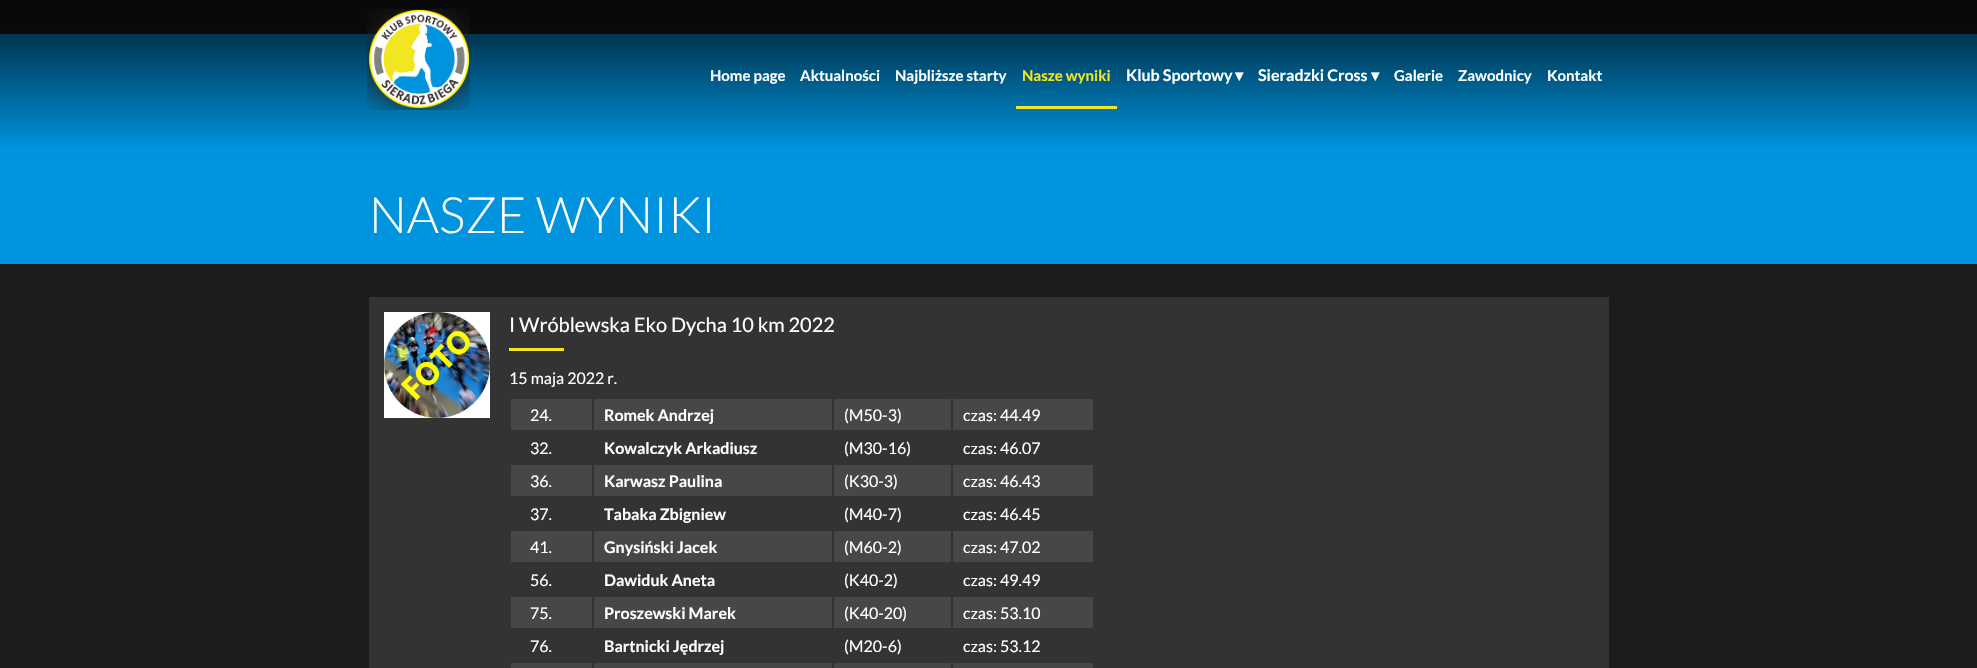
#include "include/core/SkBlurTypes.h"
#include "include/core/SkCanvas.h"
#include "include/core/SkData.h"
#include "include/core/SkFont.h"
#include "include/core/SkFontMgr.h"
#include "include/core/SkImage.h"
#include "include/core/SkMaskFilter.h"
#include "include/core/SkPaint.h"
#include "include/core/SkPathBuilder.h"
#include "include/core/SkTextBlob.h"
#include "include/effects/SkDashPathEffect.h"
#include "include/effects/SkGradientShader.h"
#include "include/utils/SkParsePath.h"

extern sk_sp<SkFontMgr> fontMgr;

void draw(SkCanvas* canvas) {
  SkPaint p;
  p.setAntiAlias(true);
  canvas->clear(SkColorSetRGB(28, 28, 28));
  p.setColor(SkColorSetRGB(0, 148, 222));
  canvas->drawRect(SkRect::MakeLTRB(0, 34, 1977, 264), p);
  {
    const SkColor colors[] = {SkColorSetARGB(179, 0, 0, 0), SkColorSetARGB(0, 0, 0, 0)};
    const float stops[] = {0.15f, 1};
    const SkPoint ends[] = {{989, 0}, {989, 150}};
    p.setShader(SkGradientShader::MakeLinear(ends, colors, stops, 2, SkTileMode::kClamp));
    p.setAlpha(255);
  }
  canvas->drawRect(SkRect::MakeLTRB(0, 0, 1977, 146), p);
  canvas->drawImageRect(SkImages::DeferredFromEncodedData(SkData::MakeFromFileName("images/1.png")), SkRect::MakeLTRB(367, 9, 470, 110), SkSamplingOptions());
  p.setShader(nullptr);
  p.setColor(SkColorSetRGB(242, 229, 33));
  canvas->drawRect(SkRect::MakeLTRB(1016, 106, 1117, 109), p);
  p.setColor(SkColorSetRGB(51, 51, 51));
  canvas->drawRect(SkRect::MakeLTRB(369, 297, 1609, 668), p);
  canvas->drawImageRect(SkImages::DeferredFromEncodedData(SkData::MakeFromFileName("images/2.png")), SkRect::MakeLTRB(384, 312, 490, 418), SkSamplingOptions());
  p.setColor(SkColorSetRGB(242, 229, 33));
  canvas->drawRect(SkRect::MakeLTRB(509, 348, 564, 351), p);
  p.setColor(SkColorSetRGB(71, 71, 71));
  canvas->drawRect(SkRect::MakeLTRB(511, 399, 592, 430), p);
  canvas->drawRect(SkRect::MakeLTRB(594, 399, 832, 430), p);
  canvas->drawRect(SkRect::MakeLTRB(834, 399, 951, 430), p);
  canvas->drawRect(SkRect::MakeLTRB(953, 399, 1093, 430), p);
  canvas->drawRect(SkRect::MakeLTRB(511, 465, 592, 496), p);
  canvas->drawRect(SkRect::MakeLTRB(594, 465, 832, 496), p);
  canvas->drawRect(SkRect::MakeLTRB(834, 465, 951, 496), p);
  canvas->drawRect(SkRect::MakeLTRB(953, 465, 1093, 496), p);
  canvas->drawRect(SkRect::MakeLTRB(511, 531, 592, 562), p);
  canvas->drawRect(SkRect::MakeLTRB(594, 531, 832, 562), p);
  canvas->drawRect(SkRect::MakeLTRB(834, 531, 951, 562), p);
  canvas->drawRect(SkRect::MakeLTRB(953, 531, 1093, 562), p);
  canvas->drawRect(SkRect::MakeLTRB(511, 597, 592, 628), p);
  canvas->drawRect(SkRect::MakeLTRB(594, 597, 832, 628), p);
  canvas->drawRect(SkRect::MakeLTRB(834, 597, 951, 628), p);
  canvas->drawRect(SkRect::MakeLTRB(953, 597, 1093, 628), p);
  canvas->drawRect(SkRect::MakeLTRB(511, 663, 592, 668), p);
  canvas->drawRect(SkRect::MakeLTRB(594, 663, 832, 668), p);
  canvas->drawRect(SkRect::MakeLTRB(834, 663, 951, 668), p);
  canvas->drawRect(SkRect::MakeLTRB(953, 663, 1093, 668), p);
  SkFont font1(fontMgr->matchFamilyStyle("Lato", SkFontStyle::Bold()), 15);
  font1.setSubpixel(true);
  p.setColor(SK_ColorWHITE);
  canvas->drawString("Home page", 710, 81, font1, p);
  canvas->drawString("Aktualności", 800, 81, font1, p);
  canvas->drawString("Najbliższe starty", 895, 81, font1, p);
  p.setColor(SkColorSetRGB(242, 229, 33));
  canvas->drawString("Nasze wyniki", 1022, 81, font1, p);
  SkFont font2(fontMgr->matchFamilyStyle("Lato", SkFontStyle::Bold()), 16);
  font2.setSubpixel(true);
  p.setColor(SK_ColorWHITE);
  canvas->drawString("Klub Sportowy", 1126, 81, font2, p);
  SkFont font3(fontMgr->matchFamilyStyle("DejaVu Sans", SkFontStyle::Bold()), 16);
  font3.setSubpixel(true);
  canvas->drawString("▾", 1235, 81, font3, p);
  canvas->drawString("Sieradzki Cross", 1258, 81, font2, p);
  canvas->drawString("▾", 1371, 81, font3, p);
  canvas->drawString("Galerie", 1394, 81, font1, p);
  canvas->drawString("Zawodnicy", 1458, 81, font1, p);
  canvas->drawString("Kontakt", 1547, 81, font1, p);
  SkFont font4(fontMgr->matchFamilyStyle("Lato", SkFontStyle(300, SkFontStyle::kNormal_Width, SkFontStyle::kUpright_Slant)), 50);
  font4.setSubpixel(true);
  canvas->drawString("NASZE WYNIKI", 369, 233, font4, p);
  SkFont font5(fontMgr->matchFamilyStyle("Lato", SkFontStyle::Normal()), 20);
  font5.setSubpixel(true);
  canvas->drawString("I Wróblewska Eko Dycha 10 km 2022", 509, 332, font5, p);
  SkFont font6(fontMgr->matchFamilyStyle("Lato", SkFontStyle::Normal()), 16);
  font6.setSubpixel(true);
  canvas->drawString("15 maja 2022 r.", 509, 384, font6, p);
  canvas->drawString("24.", 530, 421, font6, p);
  canvas->drawString("Romek Andrzej", 604, 421, font2, p);
  canvas->drawString("(M50-3)", 844, 421, font6, p);
  canvas->drawString("czas: 44.49", 963, 421, font6, p);
  canvas->drawString("32.", 530, 454, font6, p);
  canvas->drawString("Kowalczyk Arkadiusz", 604, 454, font2, p);
  canvas->drawString("(M30-16)", 844, 454, font6, p);
  canvas->drawString("czas: 46.07", 963, 454, font6, p);
  canvas->drawString("36.", 530, 487, font6, p);
  canvas->drawString("Karwasz Paulina", 604, 487, font2, p);
  canvas->drawString("(K30-3)", 844, 487, font6, p);
  canvas->drawString("czas: 46.43", 963, 487, font6, p);
  canvas->drawString("37.", 530, 520, font6, p);
  canvas->drawString("Tabaka Zbigniew", 604, 520, font2, p);
  canvas->drawString("(M40-7)", 844, 520, font6, p);
  canvas->drawString("czas: 46.45", 963, 520, font6, p);
  canvas->drawString("41.", 530, 553, font6, p);
  canvas->drawString("Gnysiński Jacek", 604, 553, font2, p);
  canvas->drawString("(M60-2)", 844, 553, font6, p);
  canvas->drawString("czas: 47.02", 963, 553, font6, p);
  canvas->drawString("56.", 530, 586, font6, p);
  canvas->drawString("Dawiduk Aneta", 604, 586, font2, p);
  canvas->drawString("(K40-2)", 844, 586, font6, p);
  canvas->drawString("czas: 49.49", 963, 586, font6, p);
  canvas->drawString("75.", 530, 619, font6, p);
  canvas->drawString("Proszewski Marek", 604, 619, font2, p);
  canvas->drawString("(K40-20)", 844, 619, font6, p);
  canvas->drawString("czas: 53.10", 963, 619, font6, p);
  canvas->drawString("76.", 530, 652, font6, p);
  canvas->drawString("Bartnicki Jędrzej", 604, 652, font2, p);
  canvas->drawString("(M20-6)", 844, 652, font6, p);
  canvas->drawString("czas: 53.12", 963, 652, font6, p);
}
